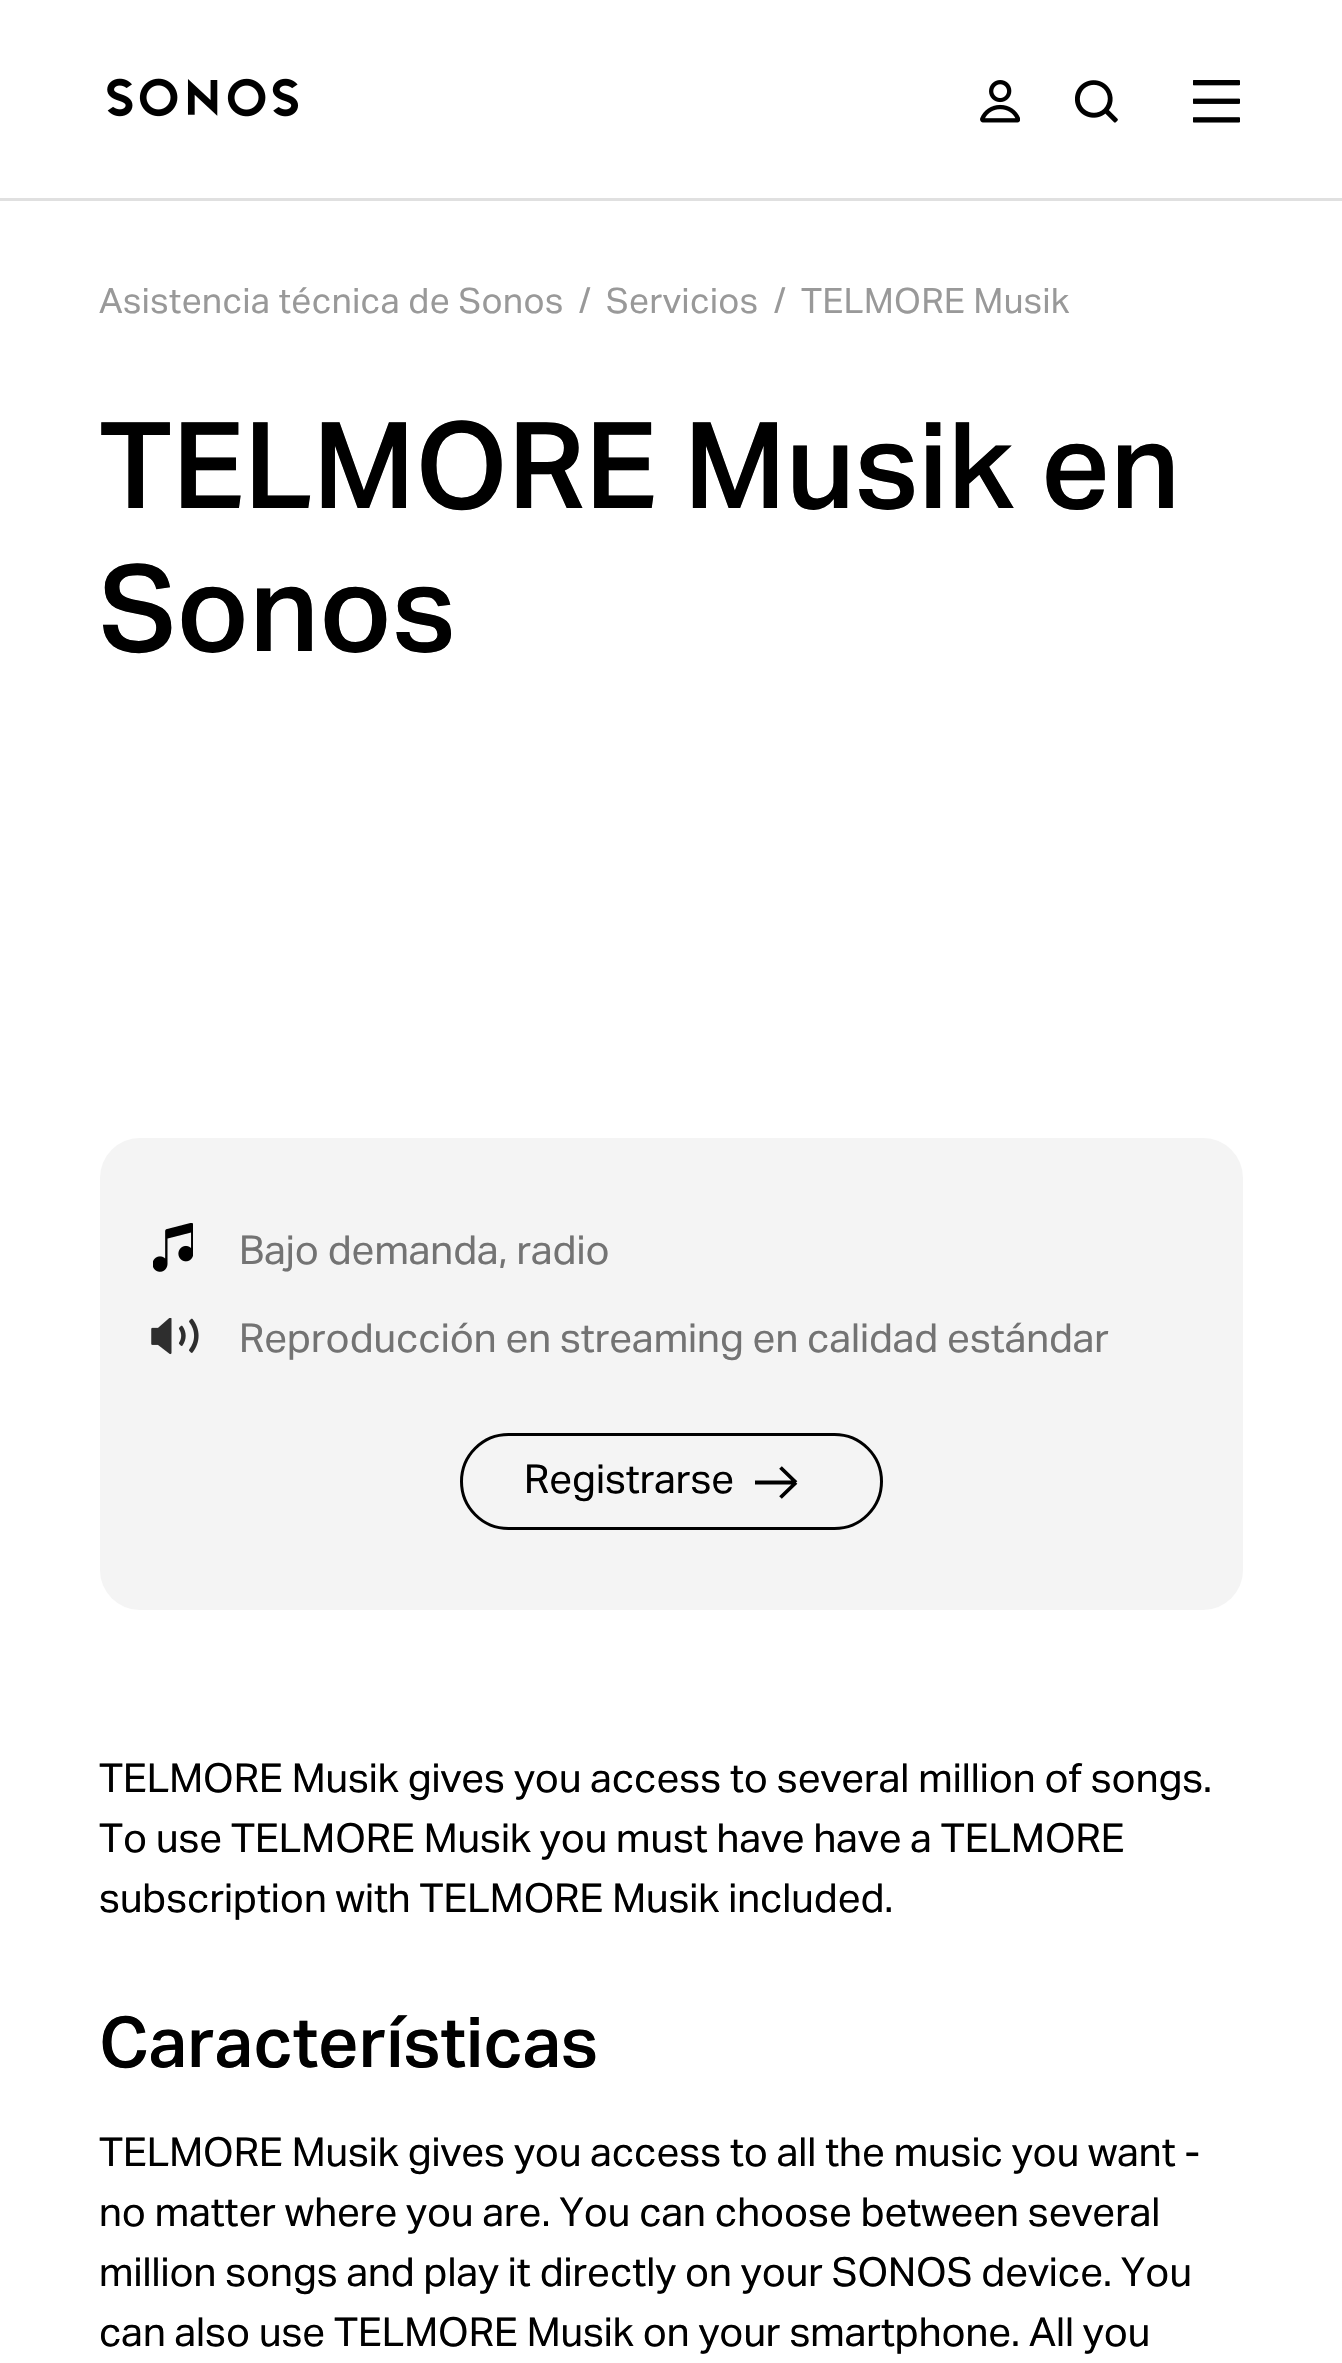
#include "include/core/SkBlurTypes.h"
#include "include/core/SkCanvas.h"
#include "include/core/SkData.h"
#include "include/core/SkFont.h"
#include "include/core/SkFontMgr.h"
#include "include/core/SkImage.h"
#include "include/core/SkMaskFilter.h"
#include "include/core/SkPaint.h"
#include "include/core/SkPathBuilder.h"
#include "include/core/SkTextBlob.h"
#include "include/effects/SkDashPathEffect.h"
#include "include/effects/SkGradientShader.h"
#include "include/utils/SkParsePath.h"

extern sk_sp<SkFontMgr> fontMgr;

void draw(SkCanvas* canvas) {
  SkPaint p;
  p.setAntiAlias(true);
  auto spacedText = [&](const char* s, float x, float y, const SkFont& font, const SkPaint& ink, float letter, float word) {
    std::vector<SkGlyphID> glyphs(font.countText(s, strlen(s), SkTextEncoding::kUTF8));
    std::vector<float> xs(glyphs.size());
    font.textToGlyphs(s, strlen(s), SkTextEncoding::kUTF8, glyphs);
    font.getXPos(glyphs, xs, x);
    float extra = 0;
    for (size_t i = 0; i < glyphs.size(); i++) {
      xs[i] += extra;
      extra += letter + word * (glyphs[i] == font.unicharToGlyph(' '));
    }
    canvas->drawTextBlob(SkTextBlob::MakeFromPosHGlyphs(glyphs, xs, y, font), 0, 0, ink);
  };
  canvas->clear(SK_ColorWHITE);
  p.setColor(SkColorSetRGB(224, 224, 224));
  canvas->drawRect(SkRect::MakeLTRB(0, 198, 1342, 201), p);
  canvas->drawImageRect(SkImages::DeferredFromEncodedData(SkData::MakeFromFileName("images/1.png")), SkRect::MakeLTRB(107, 78, 299, 117), SkSamplingOptions());
  canvas->drawImageRect(SkImages::DeferredFromEncodedData(SkData::MakeFromFileName("images/2.png")), SkRect::MakeLTRB(980, 80, 1020, 123), SkSamplingOptions());
  canvas->drawImageRect(SkImages::DeferredFromEncodedData(SkData::MakeFromFileName("images/3.png")), SkRect::MakeLTRB(1075, 80, 1118, 123), SkSamplingOptions());
  canvas->drawImageRect(SkImages::DeferredFromEncodedData(SkData::MakeFromFileName("images/4.png")), SkRect::MakeLTRB(1193, 80, 1240, 123), SkSamplingOptions());
  p.setColor(SkColorSetRGB(244, 244, 244));
  canvas->drawRoundRect(SkRect::MakeLTRB(100, 1138, 1243, 1610), 40, 40, p);
  canvas->drawImageRect(SkImages::DeferredFromEncodedData(SkData::MakeFromFileName("images/5.png")), SkRect::MakeLTRB(153, 1223, 193, 1272), SkSamplingOptions());
  canvas->drawImageRect(SkImages::DeferredFromEncodedData(SkData::MakeFromFileName("images/6.png")), SkRect::MakeLTRB(151, 1318, 199, 1355), SkSamplingOptions());
  p.setStyle(SkPaint::kStroke_Style);
  p.setStrokeWidth(3);
  p.setColor(SK_ColorBLACK);
  canvas->drawRoundRect(SkRect::MakeLTRB(461.5f, 1434.5f, 881.5f, 1528.5f), 47, 47, p);
  p.setStrokeWidth(3.8f);
  canvas->drawPath(SkPathBuilder().moveTo(780.5f, 1467.5f).lineTo(796, 1482.5f).moveTo(796, 1482.5f).lineTo(780.5f, 1497.5f).moveTo(796, 1482.5f).lineTo(755, 1482.5f).detach(), p);
  SkFont font1(fontMgr->matchFamilyStyle("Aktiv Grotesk", SkFontStyle::Normal()), 35);
  font1.setSubpixel(true);
  p.setStyle(SkPaint::kFill_Style);
  p.setColor(SkColorSetRGB(153, 153, 153));
  spacedText("Asistencia técnica de Sonos", 99, 313, font1, p, 0.5f, 0);
  spacedText("/", 579, 313, font1, p, 0.5f, 0);
  spacedText("Servicios", 606, 313, font1, p, 0.5f, 0);
  spacedText("/", 774, 313, font1, p, 0.5f, 0);
  spacedText("TELMORE Musik", 801, 313, font1, p, 0.5f, 0);
  SkFont font2(fontMgr->matchFamilyStyle("Aktiv Grotesk", SkFontStyle(500, SkFontStyle::kNormal_Width, SkFontStyle::kUpright_Slant)), 120);
  font2.setSubpixel(true);
  p.setColor(SK_ColorBLACK);
  canvas->drawString("TELMORE Musik en", 99, 508, font2, p);
  canvas->drawString("Sonos", 99, 651, font2, p);
  SkFont font3(fontMgr->matchFamilyStyle("Aktiv Grotesk", SkFontStyle::Normal()), 40);
  font3.setSubpixel(true);
  p.setColor(SkColorSetRGB(115, 115, 115));
  canvas->drawString("Bajo demanda, radio", 239, 1264, font3, p);
  canvas->drawString("Reproducción en streaming en calidad estándar", 239, 1352, font3, p);
  p.setColor(SK_ColorBLACK);
  canvas->drawString("Registrarse", 524, 1493, font3, p);
  canvas->drawString("TELMORE Musik gives you access to several million of songs.", 99, 1792, font3, p);
  canvas->drawString("To use TELMORE Musik you must have have a TELMORE", 99, 1852, font3, p);
  canvas->drawString("subscription with TELMORE Musik included.", 99, 1912, font3, p);
  SkFont font4(fontMgr->matchFamilyStyle("Aktiv Grotesk", SkFontStyle(500, SkFontStyle::kNormal_Width, SkFontStyle::kUpright_Slant)), 70);
  font4.setSubpixel(true);
  canvas->drawString("Características", 99, 2067, font4, p);
  canvas->drawString("TELMORE Musik gives you access to all the music you want -", 99, 2166, font3, p);
  canvas->drawString("no matter where you are. You can choose between several", 99, 2226, font3, p);
  canvas->drawString("million songs and play it directly on your SONOS device. You", 99, 2286, font3, p);
  canvas->drawString("can also use TELMORE Musik on your smartphone. All you", 99, 2346, font3, p);
}
